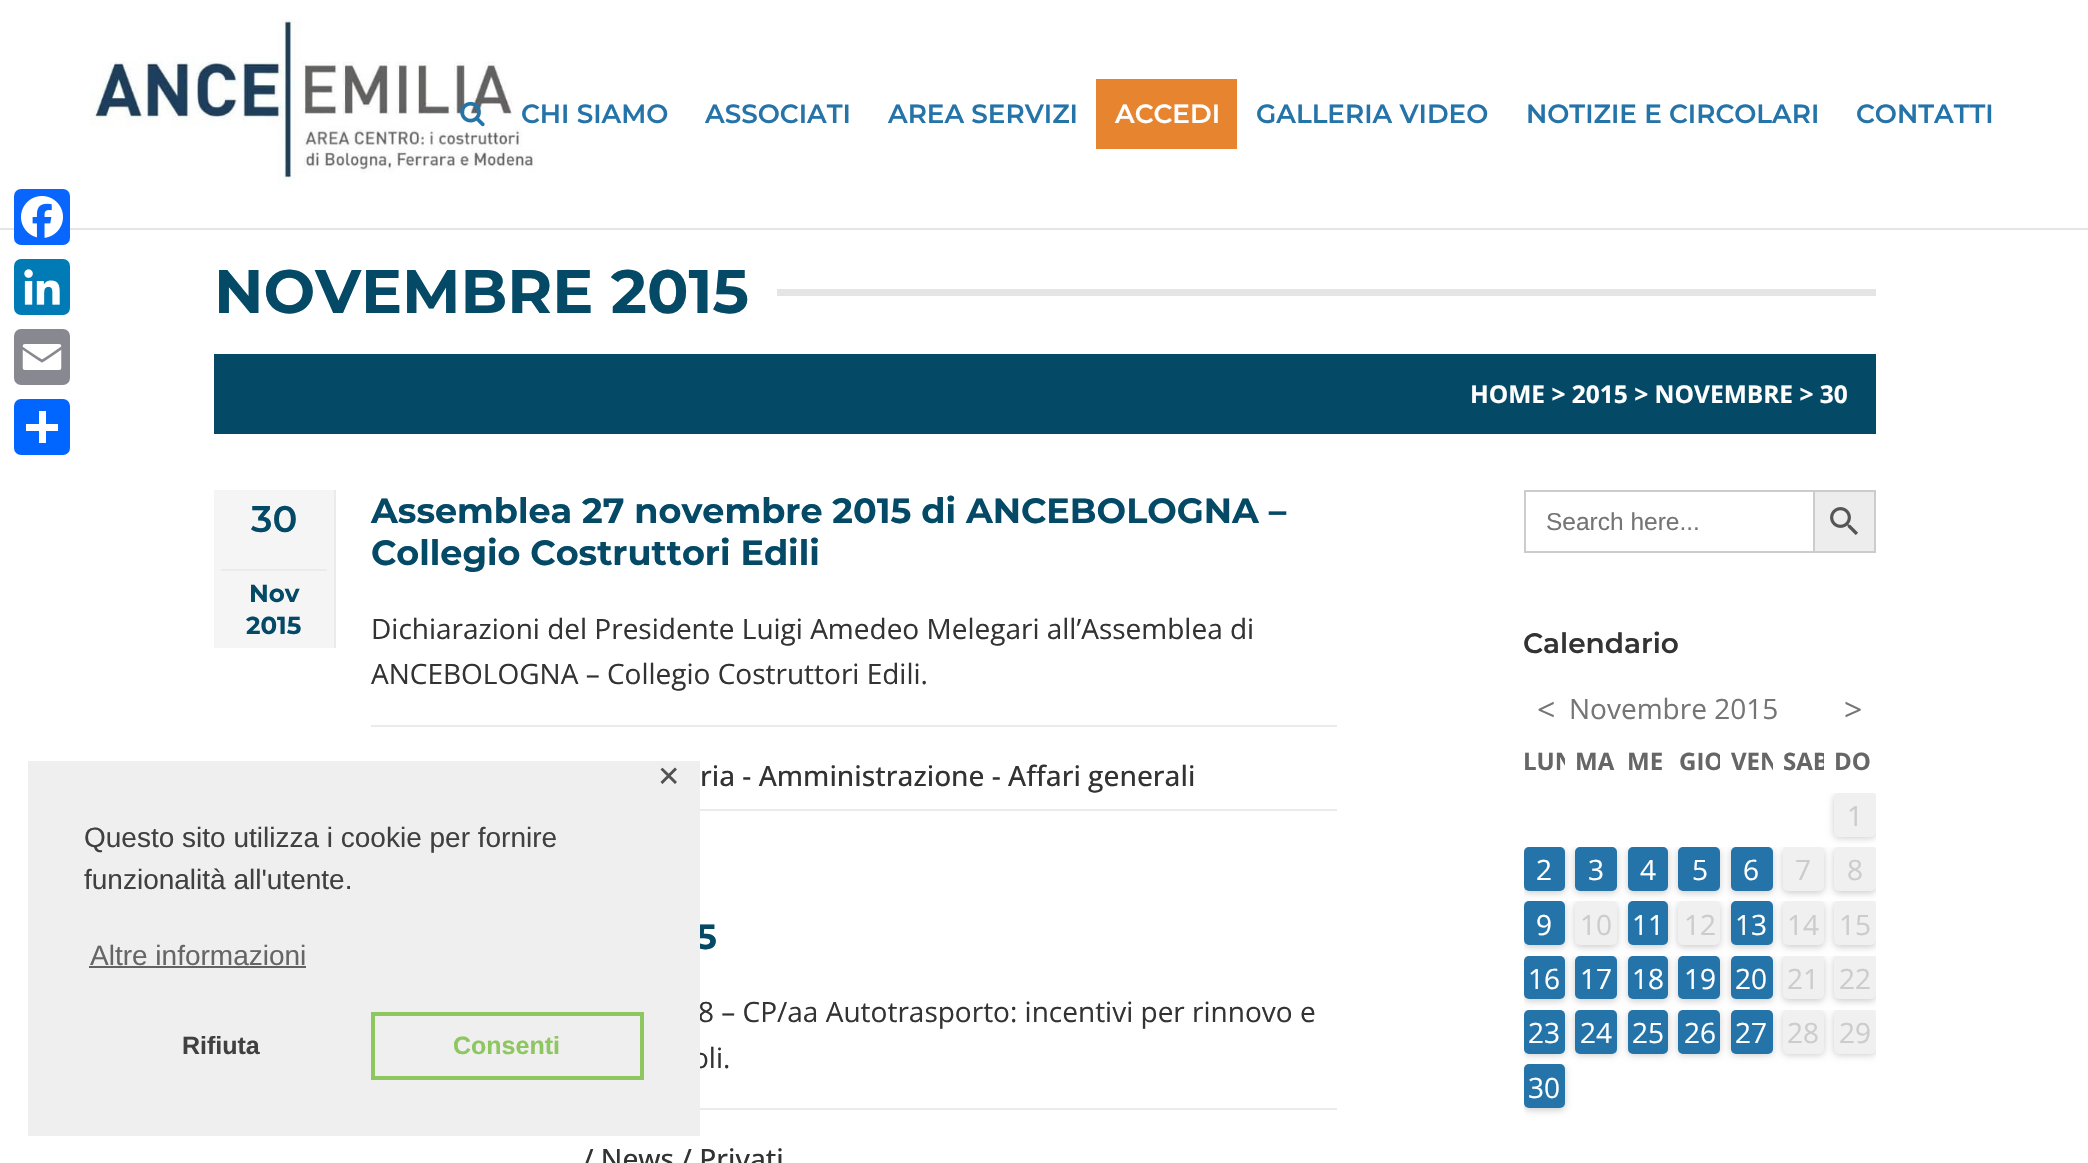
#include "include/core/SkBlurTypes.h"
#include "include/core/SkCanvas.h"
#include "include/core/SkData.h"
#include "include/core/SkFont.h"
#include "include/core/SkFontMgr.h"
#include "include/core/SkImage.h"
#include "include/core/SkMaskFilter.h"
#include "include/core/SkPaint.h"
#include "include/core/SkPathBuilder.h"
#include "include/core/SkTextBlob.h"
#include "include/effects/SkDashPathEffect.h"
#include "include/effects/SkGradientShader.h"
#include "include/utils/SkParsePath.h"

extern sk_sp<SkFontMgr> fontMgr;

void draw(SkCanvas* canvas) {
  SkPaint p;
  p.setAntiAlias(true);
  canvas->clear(SK_ColorWHITE);
  p.setColor(SkColorSetRGB(229, 229, 229));
  canvas->drawRect(SkRect::MakeLTRB(0, 228, 2088, 230), p);
  p.setColor(SkColorSetRGB(8, 102, 255));
  canvas->drawRoundRect(SkRect::MakeLTRB(14, 189, 70, 245), 7, 7, p);
  canvas->drawImageRect(SkImages::DeferredFromEncodedData(SkData::MakeFromFileName("images/1.png")), SkRect::MakeLTRB(21, 196, 63, 238), SkSamplingOptions());
  p.setColor(SkColorSetRGB(0, 123, 181));
  canvas->drawRoundRect(SkRect::MakeLTRB(14, 259, 70, 315), 7, 7, p);
  canvas->drawImageRect(SkImages::DeferredFromEncodedData(SkData::MakeFromFileName("images/2.png")), SkRect::MakeLTRB(24, 269, 60, 305), SkSamplingOptions());
  p.setColor(SkColorSetRGB(136, 137, 144));
  canvas->drawRoundRect(SkRect::MakeLTRB(14, 329, 70, 385), 7, 7, p);
  canvas->drawImageRect(SkImages::DeferredFromEncodedData(SkData::MakeFromFileName("images/3.png")), SkRect::MakeLTRB(22, 344, 62, 370), SkSamplingOptions());
  p.setColor(SkColorSetRGB(1, 102, 255));
  canvas->drawRoundRect(SkRect::MakeLTRB(14, 399, 70, 455), 7, 7, p);
  p.setColor(SK_ColorWHITE);
  canvas->drawRect(SkRect::MakeLTRB(39, 411, 46, 443), p);
  canvas->drawRect(SkRect::MakeLTRB(26, 424, 58, 431), p);
  canvas->drawImageRect(SkImages::DeferredFromEncodedData(SkData::MakeFromFileName("images/4.png")), SkRect::MakeLTRB(90, 19, 535, 184), SkSamplingOptions());
  canvas->drawImageRect(SkImages::DeferredFromEncodedData(SkData::MakeFromFileName("images/5.png")), SkRect::MakeLTRB(460, 101, 485, 127), SkSamplingOptions());
  p.setColor(SkColorSetRGB(230, 132, 48));
  canvas->drawRect(SkRect::MakeLTRB(1096, 79, 1237, 149), p);
  p.setColor(SkColorSetRGB(229, 229, 229));
  canvas->drawRect(SkRect::MakeLTRB(777, 289, 1876, 296), p);
  p.setColor(SkColorSetRGB(4, 74, 103));
  canvas->drawRect(SkRect::MakeLTRB(214, 354, 1876, 434), p);
  p.setColor(SkColorSetRGB(245, 245, 245));
  canvas->drawRect(SkRect::MakeLTRB(214, 490, 334, 648), p);
  p.setColor(SkColorSetRGB(235, 235, 235));
  canvas->drawRect(SkRect::MakeLTRB(334, 490, 336, 648), p);
  canvas->drawRect(SkRect::MakeLTRB(221, 569, 327, 571), p);
  canvas->drawRect(SkRect::MakeLTRB(371, 725, 1337, 727), p);
  canvas->drawRect(SkRect::MakeLTRB(700, 809, 1337, 811), p);
  canvas->drawRect(SkRect::MakeLTRB(700, 1108, 1337, 1110), p);
  p.setColor(SkColorSetRGB(204, 204, 204));
  canvas->drawRect(SkRect::MakeLTRB(1524, 490, 1813, 492), p);
  canvas->drawRect(SkRect::MakeLTRB(1524, 551, 1813, 553), p);
  canvas->drawRect(SkRect::MakeLTRB(1524, 490, 1526, 553), p);
  p.setColor(SkColorSetRGB(237, 237, 237));
  canvas->drawRect(SkRect::MakeLTRB(1814, 491, 1875, 552), p);
  p.setStyle(SkPaint::kStroke_Style);
  p.setStrokeWidth(2);
  p.setColor(SkColorSetRGB(204, 204, 204));
  canvas->drawRect(SkRect::MakeLTRB(1814, 491, 1875, 552), p);
  canvas->drawImageRect(SkImages::DeferredFromEncodedData(SkData::MakeFromFileName("images/6.png")), SkRect::MakeLTRB(1830, 507, 1858, 535), SkSamplingOptions());
  canvas->save();
  canvas->clipRect(SkRect::MakeLTRB(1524, 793, 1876, 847));
  p.setStyle(SkPaint::kFill_Style);
  p.setColor(SkColorSetARGB(51, 0, 0, 0));
  p.setMaskFilter(SkMaskFilter::MakeBlur(kNormal_SkBlurStyle, 3.5f));
  canvas->drawRoundRect(SkRect::MakeLTRB(1834, 795, 1876, 838), 5, 5, p);
  p.setMaskFilter(nullptr);
  canvas->restore();
  p.setColor(SkColorSetRGB(240, 240, 240));
  canvas->drawRoundRect(SkRect::MakeLTRB(1834, 793, 1876, 837), 5, 5, p);
  canvas->save();
  canvas->clipRect(SkRect::MakeLTRB(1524, 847, 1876, 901));
  p.setColor(SkColorSetARGB(51, 0, 0, 0));
  p.setMaskFilter(SkMaskFilter::MakeBlur(kNormal_SkBlurStyle, 3.5f));
  canvas->drawRoundRect(SkRect::MakeLTRB(1524, 849, 1565, 893), 5, 5, p);
  p.setMaskFilter(nullptr);
  canvas->restore();
  p.setColor(SkColorSetRGB(37, 116, 169));
  canvas->drawRoundRect(SkRect::MakeLTRB(1524, 847, 1565, 891), 5, 5, p);
  canvas->save();
  canvas->clipRect(SkRect::MakeLTRB(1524, 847, 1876, 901));
  p.setColor(SkColorSetARGB(51, 0, 0, 0));
  p.setMaskFilter(SkMaskFilter::MakeBlur(kNormal_SkBlurStyle, 3.5f));
  canvas->drawRoundRect(SkRect::MakeLTRB(1575, 849, 1617, 893), 5, 5, p);
  p.setMaskFilter(nullptr);
  canvas->restore();
  p.setColor(SkColorSetRGB(37, 116, 169));
  canvas->drawRoundRect(SkRect::MakeLTRB(1575, 847, 1617, 891), 5, 5, p);
  canvas->save();
  canvas->clipRect(SkRect::MakeLTRB(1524, 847, 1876, 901));
  p.setColor(SkColorSetARGB(51, 0, 0, 0));
  p.setMaskFilter(SkMaskFilter::MakeBlur(kNormal_SkBlurStyle, 3.5f));
  canvas->drawRoundRect(SkRect::MakeLTRB(1628, 849, 1668, 893), 5, 5, p);
  p.setMaskFilter(nullptr);
  canvas->restore();
  p.setColor(SkColorSetRGB(37, 116, 169));
  canvas->drawRoundRect(SkRect::MakeLTRB(1628, 847, 1668, 891), 5, 5, p);
  canvas->save();
  canvas->clipRect(SkRect::MakeLTRB(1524, 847, 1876, 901));
  p.setColor(SkColorSetARGB(51, 0, 0, 0));
  p.setMaskFilter(SkMaskFilter::MakeBlur(kNormal_SkBlurStyle, 3.5f));
  canvas->drawRoundRect(SkRect::MakeLTRB(1678, 849, 1720, 893), 5, 5, p);
  p.setMaskFilter(nullptr);
  canvas->restore();
  p.setColor(SkColorSetRGB(37, 116, 169));
  canvas->drawRoundRect(SkRect::MakeLTRB(1678, 847, 1720, 891), 5, 5, p);
  canvas->save();
  canvas->clipRect(SkRect::MakeLTRB(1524, 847, 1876, 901));
  p.setColor(SkColorSetARGB(51, 0, 0, 0));
  p.setMaskFilter(SkMaskFilter::MakeBlur(kNormal_SkBlurStyle, 3.5f));
  canvas->drawRoundRect(SkRect::MakeLTRB(1731, 849, 1773, 893), 5, 5, p);
  p.setMaskFilter(nullptr);
  canvas->restore();
  p.setColor(SkColorSetRGB(37, 116, 169));
  canvas->drawRoundRect(SkRect::MakeLTRB(1731, 847, 1773, 891), 5, 5, p);
  canvas->save();
  canvas->clipRect(SkRect::MakeLTRB(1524, 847, 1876, 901));
  p.setColor(SkColorSetARGB(51, 0, 0, 0));
  p.setMaskFilter(SkMaskFilter::MakeBlur(kNormal_SkBlurStyle, 3.5f));
  canvas->drawRoundRect(SkRect::MakeLTRB(1783, 849, 1824, 893), 5, 5, p);
  p.setMaskFilter(nullptr);
  canvas->restore();
  p.setColor(SkColorSetRGB(240, 240, 240));
  canvas->drawRoundRect(SkRect::MakeLTRB(1783, 847, 1824, 891), 5, 5, p);
  canvas->save();
  canvas->clipRect(SkRect::MakeLTRB(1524, 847, 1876, 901));
  p.setColor(SkColorSetARGB(51, 0, 0, 0));
  p.setMaskFilter(SkMaskFilter::MakeBlur(kNormal_SkBlurStyle, 3.5f));
  canvas->drawRoundRect(SkRect::MakeLTRB(1834, 849, 1876, 893), 5, 5, p);
  p.setMaskFilter(nullptr);
  canvas->restore();
  p.setColor(SkColorSetRGB(240, 240, 240));
  canvas->drawRoundRect(SkRect::MakeLTRB(1834, 847, 1876, 891), 5, 5, p);
  canvas->save();
  canvas->clipRect(SkRect::MakeLTRB(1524, 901, 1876, 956));
  p.setColor(SkColorSetARGB(51, 0, 0, 0));
  p.setMaskFilter(SkMaskFilter::MakeBlur(kNormal_SkBlurStyle, 3.5f));
  canvas->drawRoundRect(SkRect::MakeLTRB(1524, 903, 1565, 947), 5, 5, p);
  p.setMaskFilter(nullptr);
  canvas->restore();
  p.setColor(SkColorSetRGB(37, 116, 169));
  canvas->drawRoundRect(SkRect::MakeLTRB(1524, 901, 1565, 945), 5, 5, p);
  canvas->save();
  canvas->clipRect(SkRect::MakeLTRB(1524, 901, 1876, 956));
  p.setColor(SkColorSetARGB(51, 0, 0, 0));
  p.setMaskFilter(SkMaskFilter::MakeBlur(kNormal_SkBlurStyle, 3.5f));
  canvas->drawRoundRect(SkRect::MakeLTRB(1575, 903, 1617, 947), 5, 5, p);
  p.setMaskFilter(nullptr);
  canvas->restore();
  p.setColor(SkColorSetRGB(240, 240, 240));
  canvas->drawRoundRect(SkRect::MakeLTRB(1575, 901, 1617, 945), 5, 5, p);
  canvas->save();
  canvas->clipRect(SkRect::MakeLTRB(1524, 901, 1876, 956));
  p.setColor(SkColorSetARGB(51, 0, 0, 0));
  p.setMaskFilter(SkMaskFilter::MakeBlur(kNormal_SkBlurStyle, 3.5f));
  canvas->drawRoundRect(SkRect::MakeLTRB(1628, 903, 1668, 947), 5, 5, p);
  p.setMaskFilter(nullptr);
  canvas->restore();
  p.setColor(SkColorSetRGB(37, 116, 169));
  canvas->drawRoundRect(SkRect::MakeLTRB(1628, 901, 1668, 945), 5, 5, p);
  canvas->save();
  canvas->clipRect(SkRect::MakeLTRB(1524, 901, 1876, 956));
  p.setColor(SkColorSetARGB(51, 0, 0, 0));
  p.setMaskFilter(SkMaskFilter::MakeBlur(kNormal_SkBlurStyle, 3.5f));
  canvas->drawRoundRect(SkRect::MakeLTRB(1678, 903, 1720, 947), 5, 5, p);
  p.setMaskFilter(nullptr);
  canvas->restore();
  p.setColor(SkColorSetRGB(240, 240, 240));
  canvas->drawRoundRect(SkRect::MakeLTRB(1678, 901, 1720, 945), 5, 5, p);
  canvas->save();
  canvas->clipRect(SkRect::MakeLTRB(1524, 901, 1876, 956));
  p.setColor(SkColorSetARGB(51, 0, 0, 0));
  p.setMaskFilter(SkMaskFilter::MakeBlur(kNormal_SkBlurStyle, 3.5f));
  canvas->drawRoundRect(SkRect::MakeLTRB(1731, 903, 1773, 947), 5, 5, p);
  p.setMaskFilter(nullptr);
  canvas->restore();
  p.setColor(SkColorSetRGB(37, 116, 169));
  canvas->drawRoundRect(SkRect::MakeLTRB(1731, 901, 1773, 945), 5, 5, p);
  canvas->save();
  canvas->clipRect(SkRect::MakeLTRB(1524, 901, 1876, 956));
  p.setColor(SkColorSetARGB(51, 0, 0, 0));
  p.setMaskFilter(SkMaskFilter::MakeBlur(kNormal_SkBlurStyle, 3.5f));
  canvas->drawRoundRect(SkRect::MakeLTRB(1783, 903, 1824, 947), 5, 5, p);
  p.setMaskFilter(nullptr);
  canvas->restore();
  p.setColor(SkColorSetRGB(240, 240, 240));
  canvas->drawRoundRect(SkRect::MakeLTRB(1783, 901, 1824, 945), 5, 5, p);
  canvas->save();
  canvas->clipRect(SkRect::MakeLTRB(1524, 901, 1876, 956));
  p.setColor(SkColorSetARGB(51, 0, 0, 0));
  p.setMaskFilter(SkMaskFilter::MakeBlur(kNormal_SkBlurStyle, 3.5f));
  canvas->drawRoundRect(SkRect::MakeLTRB(1834, 903, 1876, 947), 5, 5, p);
  p.setMaskFilter(nullptr);
  canvas->restore();
  p.setColor(SkColorSetRGB(240, 240, 240));
  canvas->drawRoundRect(SkRect::MakeLTRB(1834, 901, 1876, 945), 5, 5, p);
  canvas->save();
  canvas->clipRect(SkRect::MakeLTRB(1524, 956, 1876, 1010));
  p.setColor(SkColorSetARGB(51, 0, 0, 0));
  p.setMaskFilter(SkMaskFilter::MakeBlur(kNormal_SkBlurStyle, 3.5f));
  canvas->drawRoundRect(SkRect::MakeLTRB(1524, 957, 1565, 1001), 5, 5, p);
  p.setMaskFilter(nullptr);
  canvas->restore();
  p.setColor(SkColorSetRGB(37, 116, 169));
  canvas->drawRoundRect(SkRect::MakeLTRB(1524, 956, 1565, 999), 5, 5, p);
  canvas->save();
  canvas->clipRect(SkRect::MakeLTRB(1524, 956, 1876, 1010));
  p.setColor(SkColorSetARGB(51, 0, 0, 0));
  p.setMaskFilter(SkMaskFilter::MakeBlur(kNormal_SkBlurStyle, 3.5f));
  canvas->drawRoundRect(SkRect::MakeLTRB(1575, 957, 1617, 1001), 5, 5, p);
  p.setMaskFilter(nullptr);
  canvas->restore();
  p.setColor(SkColorSetRGB(37, 116, 169));
  canvas->drawRoundRect(SkRect::MakeLTRB(1575, 956, 1617, 999), 5, 5, p);
  canvas->save();
  canvas->clipRect(SkRect::MakeLTRB(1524, 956, 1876, 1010));
  p.setColor(SkColorSetARGB(51, 0, 0, 0));
  p.setMaskFilter(SkMaskFilter::MakeBlur(kNormal_SkBlurStyle, 3.5f));
  canvas->drawRoundRect(SkRect::MakeLTRB(1628, 957, 1668, 1001), 5, 5, p);
  p.setMaskFilter(nullptr);
  canvas->restore();
  p.setColor(SkColorSetRGB(37, 116, 169));
  canvas->drawRoundRect(SkRect::MakeLTRB(1628, 956, 1668, 999), 5, 5, p);
  canvas->save();
  canvas->clipRect(SkRect::MakeLTRB(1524, 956, 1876, 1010));
  p.setColor(SkColorSetARGB(51, 0, 0, 0));
  p.setMaskFilter(SkMaskFilter::MakeBlur(kNormal_SkBlurStyle, 3.5f));
  canvas->drawRoundRect(SkRect::MakeLTRB(1678, 957, 1720, 1001), 5, 5, p);
  p.setMaskFilter(nullptr);
  canvas->restore();
  p.setColor(SkColorSetRGB(37, 116, 169));
  canvas->drawRoundRect(SkRect::MakeLTRB(1678, 956, 1720, 999), 5, 5, p);
  canvas->save();
  canvas->clipRect(SkRect::MakeLTRB(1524, 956, 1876, 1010));
  p.setColor(SkColorSetARGB(51, 0, 0, 0));
  p.setMaskFilter(SkMaskFilter::MakeBlur(kNormal_SkBlurStyle, 3.5f));
  canvas->drawRoundRect(SkRect::MakeLTRB(1731, 957, 1773, 1001), 5, 5, p);
  p.setMaskFilter(nullptr);
  canvas->restore();
  p.setColor(SkColorSetRGB(37, 116, 169));
  canvas->drawRoundRect(SkRect::MakeLTRB(1731, 956, 1773, 999), 5, 5, p);
  canvas->save();
  canvas->clipRect(SkRect::MakeLTRB(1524, 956, 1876, 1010));
  p.setColor(SkColorSetARGB(51, 0, 0, 0));
  p.setMaskFilter(SkMaskFilter::MakeBlur(kNormal_SkBlurStyle, 3.5f));
  canvas->drawRoundRect(SkRect::MakeLTRB(1783, 957, 1824, 1001), 5, 5, p);
  p.setMaskFilter(nullptr);
  canvas->restore();
  p.setColor(SkColorSetRGB(240, 240, 240));
  canvas->drawRoundRect(SkRect::MakeLTRB(1783, 956, 1824, 999), 5, 5, p);
  canvas->save();
  canvas->clipRect(SkRect::MakeLTRB(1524, 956, 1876, 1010));
  p.setColor(SkColorSetARGB(51, 0, 0, 0));
  p.setMaskFilter(SkMaskFilter::MakeBlur(kNormal_SkBlurStyle, 3.5f));
  canvas->drawRoundRect(SkRect::MakeLTRB(1834, 957, 1876, 1001), 5, 5, p);
  p.setMaskFilter(nullptr);
  canvas->restore();
  p.setColor(SkColorSetRGB(240, 240, 240));
  canvas->drawRoundRect(SkRect::MakeLTRB(1834, 956, 1876, 999), 5, 5, p);
  canvas->save();
  canvas->clipRect(SkRect::MakeLTRB(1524, 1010, 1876, 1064));
  p.setColor(SkColorSetARGB(51, 0, 0, 0));
  p.setMaskFilter(SkMaskFilter::MakeBlur(kNormal_SkBlurStyle, 3.5f));
  canvas->drawRoundRect(SkRect::MakeLTRB(1524, 1012, 1565, 1055), 5, 5, p);
  p.setMaskFilter(nullptr);
  canvas->restore();
  p.setColor(SkColorSetRGB(37, 116, 169));
  canvas->drawRoundRect(SkRect::MakeLTRB(1524, 1010, 1565, 1054), 5, 5, p);
  canvas->save();
  canvas->clipRect(SkRect::MakeLTRB(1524, 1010, 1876, 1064));
  p.setColor(SkColorSetARGB(51, 0, 0, 0));
  p.setMaskFilter(SkMaskFilter::MakeBlur(kNormal_SkBlurStyle, 3.5f));
  canvas->drawRoundRect(SkRect::MakeLTRB(1575, 1012, 1617, 1055), 5, 5, p);
  p.setMaskFilter(nullptr);
  canvas->restore();
  p.setColor(SkColorSetRGB(37, 116, 169));
  canvas->drawRoundRect(SkRect::MakeLTRB(1575, 1010, 1617, 1054), 5, 5, p);
  canvas->save();
  canvas->clipRect(SkRect::MakeLTRB(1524, 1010, 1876, 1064));
  p.setColor(SkColorSetARGB(51, 0, 0, 0));
  p.setMaskFilter(SkMaskFilter::MakeBlur(kNormal_SkBlurStyle, 3.5f));
  canvas->drawRoundRect(SkRect::MakeLTRB(1628, 1012, 1668, 1055), 5, 5, p);
  p.setMaskFilter(nullptr);
  canvas->restore();
  p.setColor(SkColorSetRGB(37, 116, 169));
  canvas->drawRoundRect(SkRect::MakeLTRB(1628, 1010, 1668, 1054), 5, 5, p);
  canvas->save();
  canvas->clipRect(SkRect::MakeLTRB(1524, 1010, 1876, 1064));
  p.setColor(SkColorSetARGB(51, 0, 0, 0));
  p.setMaskFilter(SkMaskFilter::MakeBlur(kNormal_SkBlurStyle, 3.5f));
  canvas->drawRoundRect(SkRect::MakeLTRB(1678, 1012, 1720, 1055), 5, 5, p);
  p.setMaskFilter(nullptr);
  canvas->restore();
  p.setColor(SkColorSetRGB(37, 116, 169));
  canvas->drawRoundRect(SkRect::MakeLTRB(1678, 1010, 1720, 1054), 5, 5, p);
  canvas->save();
  canvas->clipRect(SkRect::MakeLTRB(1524, 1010, 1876, 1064));
  p.setColor(SkColorSetARGB(51, 0, 0, 0));
  p.setMaskFilter(SkMaskFilter::MakeBlur(kNormal_SkBlurStyle, 3.5f));
  canvas->drawRoundRect(SkRect::MakeLTRB(1731, 1012, 1773, 1055), 5, 5, p);
  p.setMaskFilter(nullptr);
  canvas->restore();
  p.setColor(SkColorSetRGB(37, 116, 169));
  canvas->drawRoundRect(SkRect::MakeLTRB(1731, 1010, 1773, 1054), 5, 5, p);
  canvas->save();
  canvas->clipRect(SkRect::MakeLTRB(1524, 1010, 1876, 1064));
  p.setColor(SkColorSetARGB(51, 0, 0, 0));
  p.setMaskFilter(SkMaskFilter::MakeBlur(kNormal_SkBlurStyle, 3.5f));
  canvas->drawRoundRect(SkRect::MakeLTRB(1783, 1012, 1824, 1055), 5, 5, p);
  p.setMaskFilter(nullptr);
  canvas->restore();
  p.setColor(SkColorSetRGB(240, 240, 240));
  canvas->drawRoundRect(SkRect::MakeLTRB(1783, 1010, 1824, 1054), 5, 5, p);
  canvas->save();
  canvas->clipRect(SkRect::MakeLTRB(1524, 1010, 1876, 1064));
  p.setColor(SkColorSetARGB(51, 0, 0, 0));
  p.setMaskFilter(SkMaskFilter::MakeBlur(kNormal_SkBlurStyle, 3.5f));
  canvas->drawRoundRect(SkRect::MakeLTRB(1834, 1012, 1876, 1055), 5, 5, p);
  p.setMaskFilter(nullptr);
  canvas->restore();
  p.setColor(SkColorSetRGB(240, 240, 240));
  canvas->drawRoundRect(SkRect::MakeLTRB(1834, 1010, 1876, 1054), 5, 5, p);
  canvas->save();
  canvas->clipRect(SkRect::MakeLTRB(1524, 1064, 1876, 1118));
  p.setColor(SkColorSetARGB(51, 0, 0, 0));
  p.setMaskFilter(SkMaskFilter::MakeBlur(kNormal_SkBlurStyle, 3.5f));
  canvas->drawRoundRect(SkRect::MakeLTRB(1524, 1066, 1565, 1110), 5, 5, p);
  p.setMaskFilter(nullptr);
  canvas->restore();
  p.setColor(SkColorSetRGB(37, 116, 169));
  canvas->drawRoundRect(SkRect::MakeLTRB(1524, 1064, 1565, 1108), 5, 5, p);
  SkFont font1(fontMgr->matchFamilyStyle("Montserrat", SkFontStyle(600, SkFontStyle::kNormal_Width, SkFontStyle::kUpright_Slant)), 26.25f);
  font1.setSubpixel(true);
  canvas->drawString("CHI SIAMO", 521, 123, font1, p);
  canvas->drawString("ASSOCIATI", 705, 123, font1, p);
  canvas->drawString("AREA SERVIZI", 888, 123, font1, p);
  p.setColor(SK_ColorWHITE);
  canvas->drawString("ACCEDI", 1115, 123, font1, p);
  p.setColor(SkColorSetRGB(37, 116, 169));
  canvas->drawString("GALLERIA VIDEO", 1256, 123, font1, p);
  canvas->drawString("NOTIZIE E CIRCOLARI", 1526, 123, font1, p);
  canvas->drawString("CONTATTI", 1856, 123, font1, p);
  SkFont font2(fontMgr->matchFamilyStyle("Montserrat", SkFontStyle::Bold()), 61.25f);
  font2.setSubpixel(true);
  p.setColor(SkColorSetRGB(4, 74, 103));
  canvas->drawString("NOVEMBRE 2015", 214, 313, font2, p);
  SkFont font3(fontMgr->matchFamilyStyle("Open Sans", SkFontStyle::Bold()), 24.5f);
  font3.setSubpixel(true);
  p.setColor(SK_ColorWHITE);
  canvas->drawString("HOME > 2015 > NOVEMBRE > 30", 1470, 403, font3, p);
  SkFont font4(fontMgr->matchFamilyStyle("Montserrat", SkFontStyle(600, SkFontStyle::kNormal_Width, SkFontStyle::kUpright_Slant)), 37);
  font4.setSubpixel(true);
  p.setColor(SkColorSetRGB(4, 74, 103));
  canvas->drawString("30", 251, 532, font4, p);
  SkFont font5(fontMgr->matchFamilyStyle("Montserrat", SkFontStyle::Bold()), 24.5f);
  font5.setSubpixel(true);
  canvas->drawString("Nov", 249, 602, font5, p);
  canvas->drawString("2015", 246, 634, font5, p);
  SkFont font6(fontMgr->matchFamilyStyle("Montserrat", SkFontStyle::Bold()), 35);
  font6.setSubpixel(true);
  canvas->drawString("Assemblea 27 novembre 2015 di ANCEBOLOGNA –", 371, 523, font6, p);
  canvas->drawString("Collegio Costruttori Edili", 371, 565, font6, p);
  SkFont font7(fontMgr->matchFamilyStyle("Open Sans", SkFontStyle::Normal()), 28);
  font7.setSubpixel(true);
  p.setColor(SkColorSetRGB(51, 51, 51));
  canvas->drawString("Dichiarazioni del Presidente Luigi Amedeo Melegari all’Assemblea di", 371, 639, font7, p);
  canvas->drawString("ANCEBOLOGNA – Collegio Costruttori Edili.", 371, 684, font7, p);
  SkFont font8(fontMgr->matchFamilyStyle("Open Sans", SkFontStyle(500, SkFontStyle::kNormal_Width, SkFontStyle::kUpright_Slant)), 28);
  font8.setSubpixel(true);
  canvas->drawString("ria - Amministrazione - Affari generali", 700, 786, font8, p);
  p.setColor(SkColorSetRGB(4, 74, 103));
  canvas->drawString("5", 696, 949, font6, p);
  p.setColor(SkColorSetRGB(51, 51, 51));
  canvas->drawString("8 – CP/aa Autotrasporto: incentivi per rinnovo e", 698, 1022, font7, p);
  canvas->drawString("oli.", 692, 1068, font7, p);
  canvas->drawString("/ News / Privati", 583, 1169, font8, p);
  SkFont font9(fontMgr->matchFamilyStyle("Liberation Sans", SkFontStyle::Normal()), 24.5f);
  font9.setSubpixel(true);
  p.setColor(SkColorSetRGB(117, 117, 117));
  canvas->drawString("Search here...", 1546, 530, font9, p);
  SkFont font10(fontMgr->matchFamilyStyle("Montserrat", SkFontStyle(600, SkFontStyle::kNormal_Width, SkFontStyle::kUpright_Slant)), 28);
  font10.setSubpixel(true);
  p.setColor(SkColorSetRGB(51, 51, 51));
  canvas->drawString("Calendario", 1523, 653, font10, p);
  SkFont font11(fontMgr->matchFamilyStyle("Open Sans", SkFontStyle::Normal()), 32);
  font11.setSubpixel(true);
  p.setColor(SkColorSetRGB(117, 117, 117));
  canvas->drawString("<", 1537, 721, font11, p);
  canvas->drawString("Novembre 2015", 1569, 719, font7, p);
  canvas->drawString(">", 1844, 721, font11, p);
  canvas->save();
  canvas->clipPath(SkPathBuilder().moveTo(1529, 740).lineTo(1560, 740).cubicTo(1563, 740, 1565, 742, 1565, 745).lineTo(1565, 779).cubicTo(1565, 782, 1563, 784, 1560, 784).lineTo(1529, 784).cubicTo(1526, 784, 1524, 782, 1524, 779).lineTo(1524, 745).cubicTo(1524, 742, 1526, 740, 1529, 740).close().detach(), true);
  SkFont font12(fontMgr->matchFamilyStyle("Open Sans", SkFontStyle::Bold()), 24);
  font12.setSubpixel(true);
  p.setColor(SkColorSetRGB(102, 102, 102));
  canvas->drawString("LUN", 1523, 770, font12, p);
  canvas->restore();
  canvas->drawString("MA", 1575, 770, font12, p);
  canvas->drawString("ME", 1627, 770, font12, p);
  canvas->save();
  canvas->clipPath(SkPathBuilder().moveTo(1683, 740).lineTo(1715, 740).cubicTo(1718, 740, 1720, 742, 1720, 745).lineTo(1720, 779).cubicTo(1720, 782, 1718, 784, 1715, 784).lineTo(1683, 784).cubicTo(1680, 784, 1678, 782, 1678, 779).lineTo(1678, 745).cubicTo(1678, 742, 1680, 740, 1683, 740).close().detach(), true);
  canvas->drawString("GIO", 1679, 770, font12, p);
  canvas->restore();
  canvas->save();
  canvas->clipPath(SkPathBuilder().moveTo(1736, 740).lineTo(1768, 740).cubicTo(1771, 740, 1773, 742, 1773, 745).lineTo(1773, 779).cubicTo(1773, 782, 1771, 784, 1768, 784).lineTo(1736, 784).cubicTo(1733, 784, 1731, 782, 1731, 779).lineTo(1731, 745).cubicTo(1731, 742, 1733, 740, 1736, 740).close().detach(), true);
  canvas->drawString("VEN", 1731, 770, font12, p);
  canvas->restore();
  canvas->save();
  canvas->clipPath(SkPathBuilder().moveTo(1788, 740).lineTo(1819, 740).cubicTo(1822, 740, 1824, 742, 1824, 745).lineTo(1824, 779).cubicTo(1824, 782, 1822, 784, 1819, 784).lineTo(1788, 784).cubicTo(1785, 784, 1783, 782, 1783, 779).lineTo(1783, 745).cubicTo(1783, 742, 1785, 740, 1788, 740).close().detach(), true);
  canvas->drawString("SAB", 1783, 770, font12, p);
  canvas->restore();
  canvas->drawString("DO", 1834, 770, font12, p);
  p.setColor(SkColorSetRGB(204, 204, 204));
  canvas->drawString("1", 1847, 826, font7, p);
  p.setColor(SK_ColorWHITE);
  canvas->drawString("2", 1536, 880, font7, p);
  canvas->drawString("3", 1588, 880, font7, p);
  canvas->drawString("4", 1640, 880, font7, p);
  canvas->drawString("5", 1692, 880, font7, p);
  canvas->drawString("6", 1743, 880, font7, p);
  p.setColor(SkColorSetRGB(204, 204, 204));
  canvas->drawString("7", 1795, 880, font7, p);
  canvas->drawString("8", 1847, 880, font7, p);
  p.setColor(SK_ColorWHITE);
  canvas->drawString("9", 1536, 935, font7, p);
  p.setColor(SkColorSetRGB(204, 204, 204));
  canvas->drawString("10", 1580, 935, font7, p);
  p.setColor(SK_ColorWHITE);
  canvas->drawString("11", 1632, 935, font7, p);
  p.setColor(SkColorSetRGB(204, 204, 204));
  canvas->drawString("12", 1684, 935, font7, p);
  p.setColor(SK_ColorWHITE);
  canvas->drawString("13", 1735, 935, font7, p);
  p.setColor(SkColorSetRGB(204, 204, 204));
  canvas->drawString("14", 1787, 935, font7, p);
  canvas->drawString("15", 1839, 935, font7, p);
  p.setColor(SK_ColorWHITE);
  canvas->drawString("16", 1528, 989, font7, p);
  canvas->drawString("17", 1580, 989, font7, p);
  canvas->drawString("18", 1632, 989, font7, p);
  canvas->drawString("19", 1684, 989, font7, p);
  canvas->drawString("20", 1735, 989, font7, p);
  p.setColor(SkColorSetRGB(204, 204, 204));
  canvas->drawString("21", 1787, 989, font7, p);
  canvas->drawString("22", 1839, 989, font7, p);
  p.setColor(SK_ColorWHITE);
  canvas->drawString("23", 1528, 1043, font7, p);
  canvas->drawString("24", 1580, 1043, font7, p);
  canvas->drawString("25", 1632, 1043, font7, p);
  canvas->drawString("26", 1684, 1043, font7, p);
  canvas->drawString("27", 1735, 1043, font7, p);
  p.setColor(SkColorSetRGB(204, 204, 204));
  canvas->drawString("28", 1787, 1043, font7, p);
  canvas->drawString("29", 1839, 1043, font7, p);
  p.setColor(SK_ColorWHITE);
  canvas->drawString("30", 1528, 1098, font7, p);
  p.setColor(SkColorSetRGB(239, 239, 239));
  canvas->drawRect(SkRect::MakeLTRB(28, 761, 700, 1136), p);
  SkFont font13(fontMgr->matchFamilyStyle("DejaVu Sans", SkFontStyle::Normal()), 28);
  font13.setSubpixel(true);
  p.setColor(SkColorSetRGB(82, 82, 82));
  canvas->drawString("✕", 657, 786, font13, p);
  SkFont font14(fontMgr->matchFamilyStyle("Liberation Sans", SkFontStyle::Normal()), 28);
  font14.setSubpixel(true);
  p.setColor(SkColorSetRGB(64, 64, 64));
  canvas->drawString("Questo sito utilizza i cookie per fornire", 84, 847, font14, p);
  canvas->drawString("funzionalità all'utente.", 84, 889, font14, p);
  p.setColor(SkColorSetRGB(102, 102, 102));
  canvas->drawString("Altre informazioni", 90, 965, font14, p);
  p.setColor(SkColorSetRGB(99, 99, 99));
  canvas->drawRect(SkRect::MakeLTRB(89, 966, 306, 968), p);
  SkFont font15(fontMgr->matchFamilyStyle("Liberation Sans", SkFontStyle::Bold()), 25);
  font15.setSubpixel(true);
  p.setColor(SkColorSetRGB(64, 64, 64));
  canvas->drawString("Rifiuta", 182, 1054, font15, p);
  p.setStyle(SkPaint::kStroke_Style);
  p.setStrokeWidth(4);
  p.setColor(SkColorSetRGB(142, 199, 96));
  canvas->drawRect(SkRect::MakeLTRB(373, 1014, 642, 1078), p);
  p.setStyle(SkPaint::kFill_Style);
  canvas->drawString("Consenti", 453, 1054, font15, p);
}
